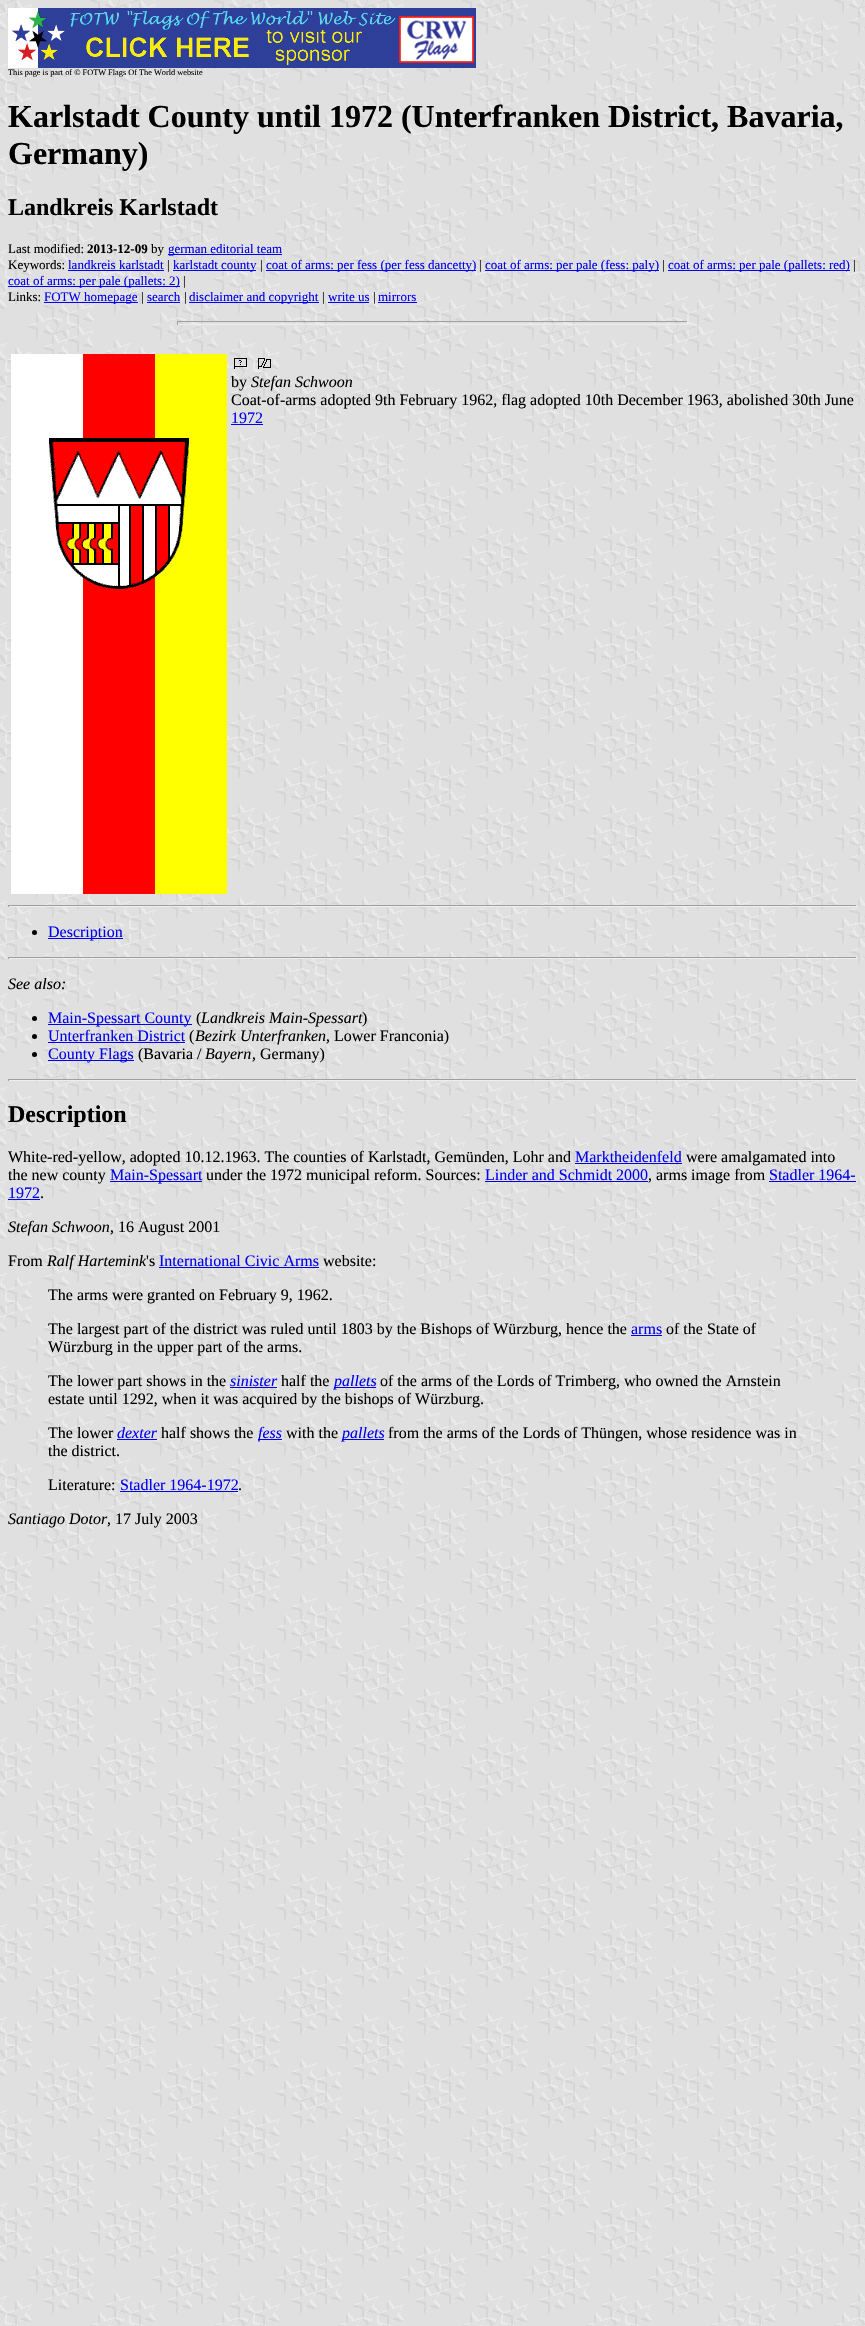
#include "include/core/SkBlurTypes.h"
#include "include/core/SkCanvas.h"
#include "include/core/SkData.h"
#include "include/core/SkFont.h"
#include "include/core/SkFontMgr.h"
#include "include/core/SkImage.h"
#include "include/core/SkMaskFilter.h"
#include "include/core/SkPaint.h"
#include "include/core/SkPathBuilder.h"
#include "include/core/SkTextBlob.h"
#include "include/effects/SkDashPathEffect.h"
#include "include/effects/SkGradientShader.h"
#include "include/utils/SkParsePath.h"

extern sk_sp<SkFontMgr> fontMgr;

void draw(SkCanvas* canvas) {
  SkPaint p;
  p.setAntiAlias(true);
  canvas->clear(SK_ColorWHITE);
  canvas->drawImageRect(SkImages::DeferredFromEncodedData(SkData::MakeFromFileName("images/1.png")), SkRect::MakeLTRB(0, 0, 865, 2326), SkSamplingOptions());
  canvas->drawImageRect(SkImages::DeferredFromEncodedData(SkData::MakeFromFileName("images/2.png")), SkRect::MakeLTRB(8, 8, 476, 68), SkSamplingOptions());
  p.setColor(SkColorSetRGB(0, 0, 238));
  canvas->drawRect(SkRect::MakeLTRB(168, 254, 282, 255), p);
  canvas->drawRect(SkRect::MakeLTRB(68, 270, 164, 271), p);
  canvas->drawRect(SkRect::MakeLTRB(173, 270, 256, 271), p);
  canvas->drawRect(SkRect::MakeLTRB(266, 270, 476, 271), p);
  canvas->drawRect(SkRect::MakeLTRB(485, 270, 659, 271), p);
  canvas->drawRect(SkRect::MakeLTRB(668, 270, 850, 271), p);
  canvas->drawRect(SkRect::MakeLTRB(8, 286, 180, 287), p);
  canvas->drawRect(SkRect::MakeLTRB(44, 302, 138, 303), p);
  canvas->drawRect(SkRect::MakeLTRB(147, 302, 180, 303), p);
  canvas->drawRect(SkRect::MakeLTRB(189, 302, 319, 303), p);
  canvas->drawRect(SkRect::MakeLTRB(328, 302, 369, 303), p);
  canvas->drawRect(SkRect::MakeLTRB(378, 302, 417, 303), p);
  p.setColor(SkColorSetRGB(159, 159, 159));
  canvas->drawRect(SkRect::MakeLTRB(177, 321, 688, 322), p);
  p.setColor(SkColorSetRGB(238, 238, 238));
  canvas->drawRect(SkRect::MakeLTRB(687, 321, 688, 325), p);
  canvas->drawRect(SkRect::MakeLTRB(177, 324, 688, 325), p);
  p.setColor(SkColorSetRGB(159, 159, 159));
  canvas->drawRect(SkRect::MakeLTRB(177, 321, 178, 325), p);
  canvas->drawImageRect(SkImages::DeferredFromEncodedData(SkData::MakeFromFileName("images/3.png")), SkRect::MakeLTRB(11, 354, 227, 894), SkSamplingOptions());
  canvas->drawImageRect(SkImages::DeferredFromEncodedData(SkData::MakeFromFileName("images/4.png")), SkRect::MakeLTRB(234, 358, 247, 369), SkSamplingOptions());
  canvas->drawImageRect(SkImages::DeferredFromEncodedData(SkData::MakeFromFileName("images/5.png")), SkRect::MakeLTRB(258, 358, 271, 369), SkSamplingOptions());
  p.setColor(SkColorSetRGB(0, 0, 238));
  canvas->drawRect(SkRect::MakeLTRB(231, 424, 263, 425), p);
  p.setColor(SkColorSetRGB(159, 159, 159));
  canvas->drawRect(SkRect::MakeLTRB(8, 905, 857, 906), p);
  p.setColor(SkColorSetRGB(238, 238, 238));
  canvas->drawRect(SkRect::MakeLTRB(856, 905, 857, 907), p);
  canvas->drawRect(SkRect::MakeLTRB(8, 906, 857, 907), p);
  p.setColor(SkColorSetRGB(159, 159, 159));
  canvas->drawRect(SkRect::MakeLTRB(8, 905, 9, 907), p);
  p.setColor(SK_ColorBLACK);
  canvas->drawCircle(34.5f, 932.5f, 2.5f, p);
  p.setColor(SkColorSetRGB(0, 0, 238));
  canvas->drawRect(SkRect::MakeLTRB(48, 938, 123, 939), p);
  p.setColor(SkColorSetRGB(159, 159, 159));
  canvas->drawRect(SkRect::MakeLTRB(8, 957, 857, 958), p);
  p.setColor(SkColorSetRGB(238, 238, 238));
  canvas->drawRect(SkRect::MakeLTRB(856, 957, 857, 959), p);
  canvas->drawRect(SkRect::MakeLTRB(8, 958, 857, 959), p);
  p.setColor(SkColorSetRGB(159, 159, 159));
  canvas->drawRect(SkRect::MakeLTRB(8, 957, 9, 959), p);
  p.setColor(SK_ColorBLACK);
  canvas->drawCircle(34.5f, 1018.5f, 2.5f, p);
  p.setColor(SkColorSetRGB(0, 0, 238));
  canvas->drawRect(SkRect::MakeLTRB(48, 1024, 192, 1025), p);
  p.setColor(SK_ColorBLACK);
  canvas->drawCircle(34.5f, 1036.5f, 2.5f, p);
  p.setColor(SkColorSetRGB(0, 0, 238));
  canvas->drawRect(SkRect::MakeLTRB(48, 1042, 185, 1043), p);
  p.setColor(SK_ColorBLACK);
  canvas->drawCircle(34.5f, 1054.5f, 2.5f, p);
  p.setColor(SkColorSetRGB(0, 0, 238));
  canvas->drawRect(SkRect::MakeLTRB(48, 1060, 134, 1061), p);
  p.setColor(SkColorSetRGB(159, 159, 159));
  canvas->drawRect(SkRect::MakeLTRB(8, 1079, 857, 1080), p);
  p.setColor(SkColorSetRGB(238, 238, 238));
  canvas->drawRect(SkRect::MakeLTRB(856, 1079, 857, 1081), p);
  canvas->drawRect(SkRect::MakeLTRB(8, 1080, 857, 1081), p);
  p.setColor(SkColorSetRGB(159, 159, 159));
  canvas->drawRect(SkRect::MakeLTRB(8, 1079, 9, 1081), p);
  p.setColor(SkColorSetRGB(0, 0, 238));
  canvas->drawRect(SkRect::MakeLTRB(575, 1163, 682, 1164), p);
  canvas->drawRect(SkRect::MakeLTRB(110, 1181, 202, 1182), p);
  canvas->drawRect(SkRect::MakeLTRB(485, 1181, 648, 1182), p);
  canvas->drawRect(SkRect::MakeLTRB(769, 1181, 856, 1182), p);
  canvas->drawRect(SkRect::MakeLTRB(8, 1199, 40, 1200), p);
  canvas->drawRect(SkRect::MakeLTRB(159, 1267, 319, 1268), p);
  canvas->drawRect(SkRect::MakeLTRB(631, 1335, 662, 1336), p);
  canvas->drawRect(SkRect::MakeLTRB(230, 1387, 277, 1388), p);
  canvas->drawRect(SkRect::MakeLTRB(334, 1387, 376, 1388), p);
  canvas->drawRect(SkRect::MakeLTRB(117, 1439, 157, 1440), p);
  canvas->drawRect(SkRect::MakeLTRB(258, 1439, 282, 1440), p);
  canvas->drawRect(SkRect::MakeLTRB(342, 1439, 384, 1440), p);
  canvas->drawRect(SkRect::MakeLTRB(120, 1491, 238, 1492), p);
  SkFont font1(fontMgr->matchFamilyStyle("Liberation Serif", SkFontStyle::Normal()), 8.3f);
  font1.setSubpixel(true);
  p.setColor(SK_ColorBLACK);
  canvas->drawString("This page is part of © FOTW Flags Of The World website", 8, 75, font1, p);
  SkFont font2(fontMgr->matchFamilyStyle("Liberation Serif", SkFontStyle::Bold()), 32);
  font2.setSubpixel(true);
  canvas->drawString("Karlstadt County until 1972 (Unterfranken District, Bavaria,", 8, 127, font2, p);
  canvas->drawString("Germany)", 8, 164, font2, p);
  SkFont font3(fontMgr->matchFamilyStyle("Liberation Serif", SkFontStyle::Bold()), 24);
  font3.setSubpixel(true);
  canvas->drawString("Landkreis Karlstadt", 8, 215, font3, p);
  SkFont font4(fontMgr->matchFamilyStyle("Liberation Serif", SkFontStyle::Normal()), 13);
  font4.setSubpixel(true);
  canvas->drawString("Last modified:", 8, 253, font4, p);
  SkFont font5(fontMgr->matchFamilyStyle("Liberation Serif", SkFontStyle::Bold()), 13);
  font5.setSubpixel(true);
  canvas->drawString("2013-12-09", 87, 253, font5, p);
  canvas->drawString("by", 151, 253, font4, p);
  p.setColor(SkColorSetRGB(0, 0, 238));
  canvas->drawString("german editorial team", 168, 253, font4, p);
  p.setColor(SK_ColorBLACK);
  canvas->drawString("Keywords:", 8, 269, font4, p);
  p.setColor(SkColorSetRGB(0, 0, 238));
  canvas->drawString("landkreis karlstadt", 68, 269, font4, p);
  p.setColor(SK_ColorBLACK);
  canvas->drawString("|", 167, 269, font4, p);
  p.setColor(SkColorSetRGB(0, 0, 238));
  canvas->drawString("karlstadt county", 173, 269, font4, p);
  p.setColor(SK_ColorBLACK);
  canvas->drawString("|", 260, 269, font4, p);
  p.setColor(SkColorSetRGB(0, 0, 238));
  canvas->drawString("coat of arms: per fess (per fess dancetty)", 266, 269, font4, p);
  p.setColor(SK_ColorBLACK);
  canvas->drawString("|", 479, 269, font4, p);
  p.setColor(SkColorSetRGB(0, 0, 238));
  canvas->drawString("coat of arms: per pale (fess: paly)", 485, 269, font4, p);
  p.setColor(SK_ColorBLACK);
  canvas->drawString("|", 662, 269, font4, p);
  p.setColor(SkColorSetRGB(0, 0, 238));
  canvas->drawString("coat of arms: per pale (pallets: red)", 668, 269, font4, p);
  p.setColor(SK_ColorBLACK);
  canvas->drawString("|", 853, 269, font4, p);
  p.setColor(SkColorSetRGB(0, 0, 238));
  canvas->drawString("coat of arms: per pale (pallets: 2)", 8, 285, font4, p);
  p.setColor(SK_ColorBLACK);
  canvas->drawString("|", 183, 285, font4, p);
  canvas->drawString("Links:", 8, 301, font4, p);
  p.setColor(SkColorSetRGB(0, 0, 238));
  canvas->drawString("FOTW homepage", 44, 301, font4, p);
  p.setColor(SK_ColorBLACK);
  canvas->drawString("|", 141, 301, font4, p);
  p.setColor(SkColorSetRGB(0, 0, 238));
  canvas->drawString("search", 147, 301, font4, p);
  p.setColor(SK_ColorBLACK);
  canvas->drawString("|", 184, 301, font4, p);
  p.setColor(SkColorSetRGB(0, 0, 238));
  canvas->drawString("disclaimer and copyright", 189, 301, font4, p);
  p.setColor(SK_ColorBLACK);
  canvas->drawString("|", 322, 301, font4, p);
  p.setColor(SkColorSetRGB(0, 0, 238));
  canvas->drawString("write us", 328, 301, font4, p);
  p.setColor(SK_ColorBLACK);
  canvas->drawString("|", 373, 301, font4, p);
  p.setColor(SkColorSetRGB(0, 0, 238));
  canvas->drawString("mirrors", 378, 301, font4, p);
  SkFont font6(fontMgr->matchFamilyStyle("Liberation Serif", SkFontStyle::Normal()), 16);
  font6.setSubpixel(true);
  p.setColor(SK_ColorBLACK);
  canvas->drawString("by", 231, 387, font6, p);
  SkFont font7(fontMgr->matchFamilyStyle("Liberation Serif", SkFontStyle::Italic()), 16);
  font7.setSubpixel(true);
  canvas->drawString("Stefan Schwoon", 251, 387, font7, p);
  canvas->drawString("Coat-of-arms adopted 9th February 1962, flag adopted 10th December 1963, abolished 30th June", 231, 405, font6, p);
  p.setColor(SkColorSetRGB(0, 0, 238));
  canvas->drawString("1972", 231, 423, font6, p);
  canvas->drawString("Description", 48, 937, font6, p);
  p.setColor(SK_ColorBLACK);
  canvas->drawString("See also:", 8, 989, font7, p);
  p.setColor(SkColorSetRGB(0, 0, 238));
  canvas->drawString("Main-Spessart County", 48, 1023, font6, p);
  p.setColor(SK_ColorBLACK);
  canvas->drawString("(", 196, 1023, font6, p);
  canvas->drawString("Landkreis Main-Spessart", 201, 1023, font7, p);
  canvas->drawString(")", 362, 1023, font6, p);
  p.setColor(SkColorSetRGB(0, 0, 238));
  canvas->drawString("Unterfranken District", 48, 1041, font6, p);
  p.setColor(SK_ColorBLACK);
  canvas->drawString("(", 189, 1041, font6, p);
  canvas->drawString("Bezirk Unterfranken", 195, 1041, font7, p);
  canvas->drawString(", Lower Franconia)", 326, 1041, font6, p);
  p.setColor(SkColorSetRGB(0, 0, 238));
  canvas->drawString("County Flags", 48, 1059, font6, p);
  p.setColor(SK_ColorBLACK);
  canvas->drawString("(Bavaria /", 138, 1059, font6, p);
  canvas->drawString("Bayern", 205, 1059, font7, p);
  canvas->drawString(", Germany)", 252, 1059, font6, p);
  canvas->drawString("Description", 8, 1122, font3, p);
  canvas->drawString("White-red-yellow, adopted 10.12.1963. The counties of Karlstadt, Gemünden, Lohr and", 8, 1162, font6, p);
  p.setColor(SkColorSetRGB(0, 0, 238));
  canvas->drawString("Marktheidenfeld", 575, 1162, font6, p);
  p.setColor(SK_ColorBLACK);
  canvas->drawString("were amalgamated into", 686, 1162, font6, p);
  canvas->drawString("the new county", 8, 1180, font6, p);
  p.setColor(SkColorSetRGB(0, 0, 238));
  canvas->drawString("Main-Spessart", 110, 1180, font6, p);
  p.setColor(SK_ColorBLACK);
  canvas->drawString("under the 1972 municipal reform. Sources:", 206, 1180, font6, p);
  p.setColor(SkColorSetRGB(0, 0, 238));
  canvas->drawString("Linder and Schmidt 2000", 485, 1180, font6, p);
  p.setColor(SK_ColorBLACK);
  canvas->drawString(", arms image from", 648, 1180, font6, p);
  p.setColor(SkColorSetRGB(0, 0, 238));
  canvas->drawString("Stadler 1964-", 769, 1180, font6, p);
  canvas->drawString("1972", 8, 1198, font6, p);
  p.setColor(SK_ColorBLACK);
  canvas->drawString(".", 40, 1198, font6, p);
  canvas->drawString("Stefan Schwoon", 8, 1232, font7, p);
  canvas->drawString(", 16 August 2001", 110, 1232, font6, p);
  canvas->drawString("From", 8, 1266, font6, p);
  canvas->drawString("Ralf Hartemink", 47, 1266, font7, p);
  canvas->drawString("'s", 146, 1266, font6, p);
  p.setColor(SkColorSetRGB(0, 0, 238));
  canvas->drawString("International Civic Arms", 159, 1266, font6, p);
  p.setColor(SK_ColorBLACK);
  canvas->drawString("website:", 323, 1266, font6, p);
  canvas->drawString("The arms were granted on February 9, 1962.", 48, 1300, font6, p);
  canvas->drawString("The largest part of the district was ruled until 1803 by the Bishops of Würzburg, hence the", 48, 1334, font6, p);
  p.setColor(SkColorSetRGB(0, 0, 238));
  canvas->drawString("arms", 631, 1334, font6, p);
  p.setColor(SK_ColorBLACK);
  canvas->drawString("of the State of", 666, 1334, font6, p);
  canvas->drawString("Würzburg in the upper part of the arms.", 48, 1352, font6, p);
  canvas->drawString("The lower part shows in the", 48, 1386, font6, p);
  p.setColor(SkColorSetRGB(0, 0, 238));
  canvas->drawString("sinister", 230, 1386, font7, p);
  p.setColor(SK_ColorBLACK);
  canvas->drawString("half the", 281, 1386, font6, p);
  p.setColor(SkColorSetRGB(0, 0, 238));
  canvas->drawString("pallets", 334, 1386, font7, p);
  p.setColor(SK_ColorBLACK);
  canvas->drawString("of the arms of the Lords of Trimberg, who owned the Arnstein", 380, 1386, font6, p);
  canvas->drawString("estate until 1292, when it was acquired by the bishops of Würzburg.", 48, 1404, font6, p);
  canvas->drawString("The lower", 48, 1438, font6, p);
  p.setColor(SkColorSetRGB(0, 0, 238));
  canvas->drawString("dexter", 117, 1438, font7, p);
  p.setColor(SK_ColorBLACK);
  canvas->drawString("half shows the", 161, 1438, font6, p);
  p.setColor(SkColorSetRGB(0, 0, 238));
  canvas->drawString("fess", 258, 1438, font7, p);
  p.setColor(SK_ColorBLACK);
  canvas->drawString("with the", 286, 1438, font6, p);
  p.setColor(SkColorSetRGB(0, 0, 238));
  canvas->drawString("pallets", 342, 1438, font7, p);
  p.setColor(SK_ColorBLACK);
  canvas->drawString("from the arms of the Lords of Thüngen, whose residence was in", 388, 1438, font6, p);
  canvas->drawString("the district.", 48, 1456, font6, p);
  canvas->drawString("Literature:", 48, 1490, font6, p);
  p.setColor(SkColorSetRGB(0, 0, 238));
  canvas->drawString("Stadler 1964-1972", 120, 1490, font6, p);
  p.setColor(SK_ColorBLACK);
  canvas->drawString(".", 238, 1490, font6, p);
  canvas->drawString("Santiago Dotor", 8, 1524, font7, p);
  canvas->drawString(", 17 July 2003", 107, 1524, font6, p);
}
